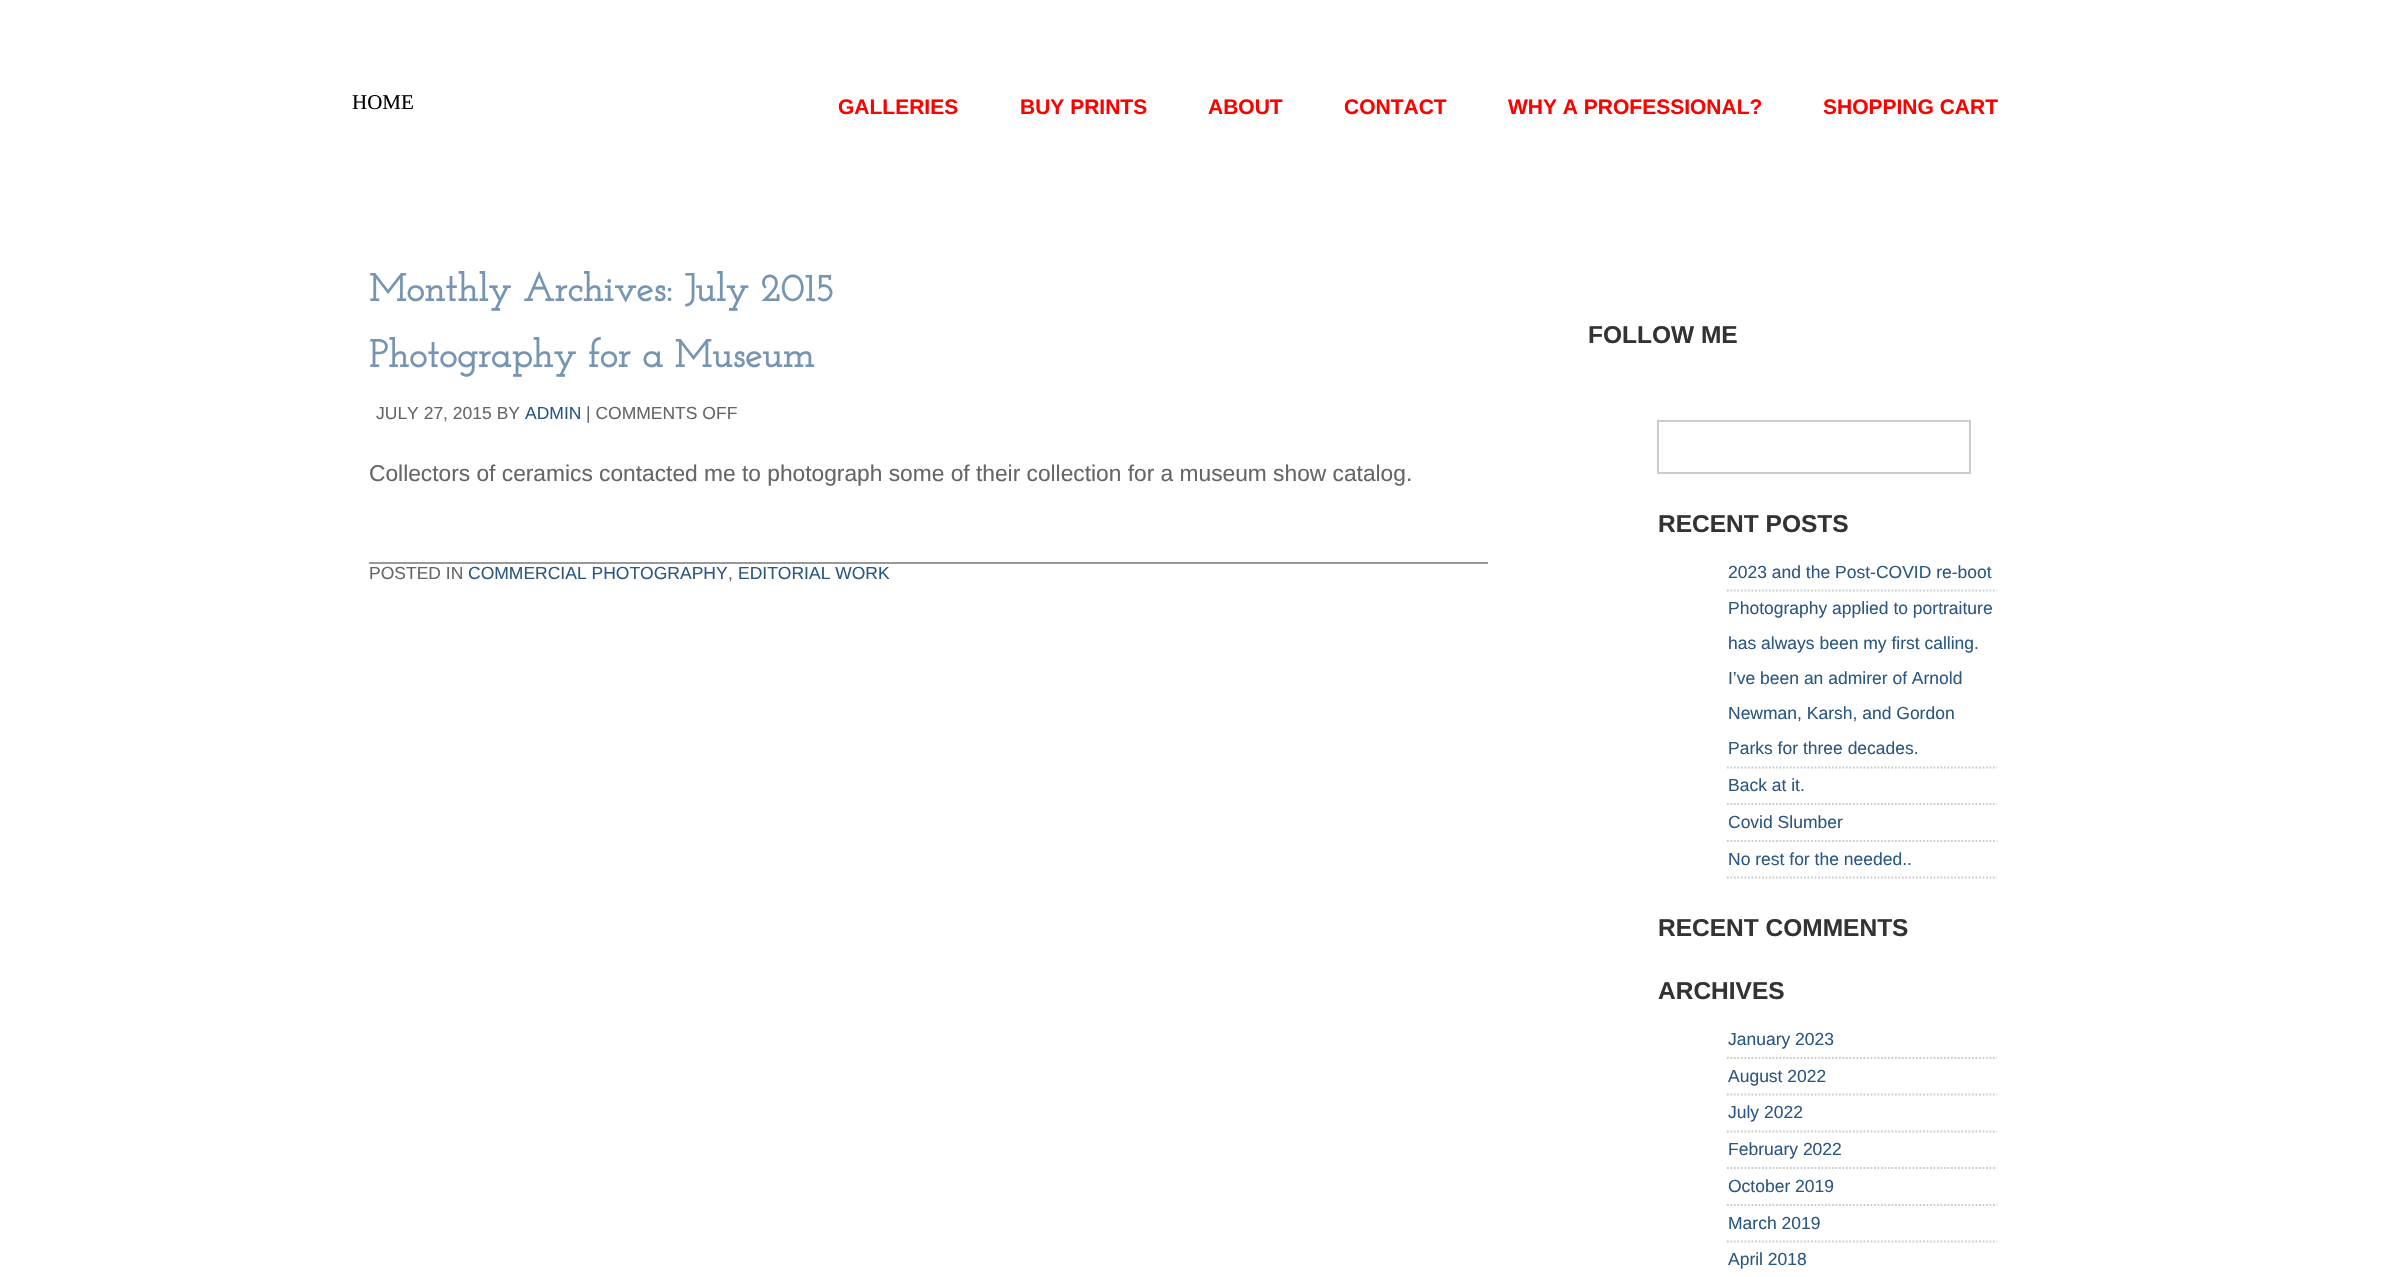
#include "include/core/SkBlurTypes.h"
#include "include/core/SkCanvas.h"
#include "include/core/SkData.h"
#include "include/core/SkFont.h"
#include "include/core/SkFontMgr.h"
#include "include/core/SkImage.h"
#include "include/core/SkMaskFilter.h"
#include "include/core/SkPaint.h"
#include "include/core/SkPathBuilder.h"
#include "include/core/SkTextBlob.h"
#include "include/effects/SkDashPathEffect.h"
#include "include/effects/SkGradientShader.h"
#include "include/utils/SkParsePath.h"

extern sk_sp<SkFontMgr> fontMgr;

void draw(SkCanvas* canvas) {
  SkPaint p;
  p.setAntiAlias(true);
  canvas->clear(SK_ColorWHITE);
  p.setColor(SkColorSetRGB(153, 153, 153));
  canvas->drawRect(SkRect::MakeLTRB(369, 562, 1488, 564), p);
  p.setStyle(SkPaint::kStroke_Style);
  p.setStrokeWidth(2);
  p.setColor(SkColorSetRGB(204, 204, 204));
  canvas->drawRect(SkRect::MakeLTRB(1658, 421, 1970, 473), p);
  p.setStrokeWidth(1.8f);
  p.setPathEffect(SkDashPathEffect::Make({{1.75f, 1.75f}}, 0));
  canvas->drawPath(SkPathBuilder().moveTo(1727, 590.5f).lineTo(1997, 590.5f).detach(), p);
  p.setPathEffect(nullptr);
  p.setPathEffect(SkDashPathEffect::Make({{1.75f, 1.75f}}, 0));
  canvas->drawPath(SkPathBuilder().moveTo(1727, 767.5f).lineTo(1997, 767.5f).detach(), p);
  p.setPathEffect(nullptr);
  p.setPathEffect(SkDashPathEffect::Make({{1.75f, 1.75f}}, 0));
  canvas->drawPath(SkPathBuilder().moveTo(1727, 804).lineTo(1997, 804).detach(), p);
  p.setPathEffect(nullptr);
  p.setPathEffect(SkDashPathEffect::Make({{1.75f, 1.75f}}, 0));
  canvas->drawPath(SkPathBuilder().moveTo(1727, 841).lineTo(1997, 841).detach(), p);
  p.setPathEffect(nullptr);
  p.setPathEffect(SkDashPathEffect::Make({{1.75f, 1.75f}}, 0));
  canvas->drawPath(SkPathBuilder().moveTo(1727, 877.5f).lineTo(1997, 877.5f).detach(), p);
  p.setPathEffect(nullptr);
  p.setPathEffect(SkDashPathEffect::Make({{1.75f, 1.75f}}, 0));
  canvas->drawPath(SkPathBuilder().moveTo(1727, 1058).lineTo(1997, 1058).detach(), p);
  p.setPathEffect(nullptr);
  p.setPathEffect(SkDashPathEffect::Make({{1.75f, 1.75f}}, 0));
  canvas->drawPath(SkPathBuilder().moveTo(1727, 1094.5f).lineTo(1997, 1094.5f).detach(), p);
  p.setPathEffect(nullptr);
  p.setPathEffect(SkDashPathEffect::Make({{1.75f, 1.75f}}, 0));
  canvas->drawPath(SkPathBuilder().moveTo(1727, 1131.5f).lineTo(1997, 1131.5f).detach(), p);
  p.setPathEffect(nullptr);
  p.setPathEffect(SkDashPathEffect::Make({{1.75f, 1.75f}}, 0));
  canvas->drawPath(SkPathBuilder().moveTo(1727, 1168).lineTo(1997, 1168).detach(), p);
  p.setPathEffect(nullptr);
  p.setPathEffect(SkDashPathEffect::Make({{1.75f, 1.75f}}, 0));
  canvas->drawPath(SkPathBuilder().moveTo(1727, 1205).lineTo(1997, 1205).detach(), p);
  p.setPathEffect(nullptr);
  p.setPathEffect(SkDashPathEffect::Make({{1.75f, 1.75f}}, 0));
  canvas->drawPath(SkPathBuilder().moveTo(1727, 1241.5f).lineTo(1997, 1241.5f).detach(), p);
  p.setPathEffect(nullptr);
  SkFont font1(fontMgr->matchFamilyStyle("Liberation Serif", SkFontStyle::Normal()), 21);
  font1.setSubpixel(true);
  p.setStyle(SkPaint::kFill_Style);
  p.setColor(SK_ColorBLACK);
  canvas->drawString("HOME", 352, 109, font1, p);
  SkFont font2(fontMgr->matchFamilyStyle("Liberation Sans", SkFontStyle::Bold()), 21);
  font2.setSubpixel(true);
  p.setColor(SkColorSetRGB(255, 0, 0));
  canvas->drawString("GALLERIES", 838, 114, font2, p);
  canvas->drawString("BUY PRINTS", 1020, 114, font2, p);
  canvas->drawString("ABOUT", 1208, 114, font2, p);
  canvas->drawString("CONTACT", 1344, 114, font2, p);
  canvas->drawString("WHY A PROFESSIONAL?", 1508, 114, font2, p);
  canvas->drawString("SHOPPING CART", 1823, 114, font2, p);
  SkFont font3(fontMgr->matchFamilyStyle("Josefin Slab", SkFontStyle::Bold()), 38.5f);
  font3.setSubpixel(true);
  p.setColor(SkColorSetRGB(118, 149, 178));
  canvas->drawString("Monthly Archives: July 2015", 369, 301, font3, p);
  canvas->drawString("Photography for a Museum", 369, 367, font3, p);
  SkFont font4(fontMgr->matchFamilyStyle("Liberation Sans", SkFontStyle::Normal()), 17.5f);
  font4.setSubpixel(true);
  p.setColor(SkColorSetRGB(102, 102, 102));
  canvas->drawString("JULY 27, 2015 BY", 376, 419, font4, p);
  p.setColor(SkColorSetRGB(43, 87, 128));
  canvas->drawString("ADMIN", 525, 419, font4, p);
  p.setColor(SkColorSetRGB(102, 102, 102));
  canvas->drawString("| COMMENTS OFF", 586, 419, font4, p);
  SkFont font5(fontMgr->matchFamilyStyle("Liberation Sans", SkFontStyle::Normal()), 22.75f);
  font5.setSubpixel(true);
  canvas->drawString("Collectors of ceramics contacted me to photograph some of their collection for a museum show catalog.", 369, 481, font5, p);
  canvas->drawString("POSTED IN", 369, 579, font4, p);
  p.setColor(SkColorSetRGB(43, 87, 128));
  canvas->drawString("COMMERCIAL PHOTOGRAPHY", 468, 579, font4, p);
  p.setColor(SkColorSetRGB(102, 102, 102));
  canvas->drawString(",", 728, 579, font4, p);
  p.setColor(SkColorSetRGB(43, 87, 128));
  canvas->drawString("EDITORIAL WORK", 738, 579, font4, p);
  SkFont font6(fontMgr->matchFamilyStyle("Liberation Sans", SkFontStyle::Bold()), 24.5f);
  font6.setSubpixel(true);
  p.setColor(SkColorSetRGB(51, 51, 51));
  canvas->drawString("FOLLOW ME", 1588, 343, font6, p);
  canvas->drawString("RECENT POSTS", 1658, 532, font6, p);
  p.setColor(SkColorSetRGB(43, 87, 128));
  canvas->drawString("2023 and the Post-COVID re-boot", 1728, 578, font4, p);
  canvas->drawString("Photography applied to portraiture", 1728, 614, font4, p);
  canvas->drawString("has always been my first calling.", 1728, 649, font4, p);
  canvas->drawString("I’ve been an admirer of Arnold", 1728, 684, font4, p);
  canvas->drawString("Newman, Karsh, and Gordon", 1728, 719, font4, p);
  canvas->drawString("Parks for three decades.", 1728, 754, font4, p);
  canvas->drawString("Back at it.", 1728, 791, font4, p);
  canvas->drawString("Covid Slumber", 1728, 828, font4, p);
  canvas->drawString("No rest for the needed..", 1728, 865, font4, p);
  p.setColor(SkColorSetRGB(51, 51, 51));
  canvas->drawString("RECENT COMMENTS", 1658, 936, font6, p);
  canvas->drawString("ARCHIVES", 1658, 999, font6, p);
  p.setColor(SkColorSetRGB(43, 87, 128));
  canvas->drawString("January 2023", 1728, 1045, font4, p);
  canvas->drawString("August 2022", 1728, 1082, font4, p);
  canvas->drawString("July 2022", 1728, 1118, font4, p);
  canvas->drawString("February 2022", 1728, 1155, font4, p);
  canvas->drawString("October 2019", 1728, 1192, font4, p);
  canvas->drawString("March 2019", 1728, 1229, font4, p);
  canvas->drawString("April 2018", 1728, 1265, font4, p);
}
